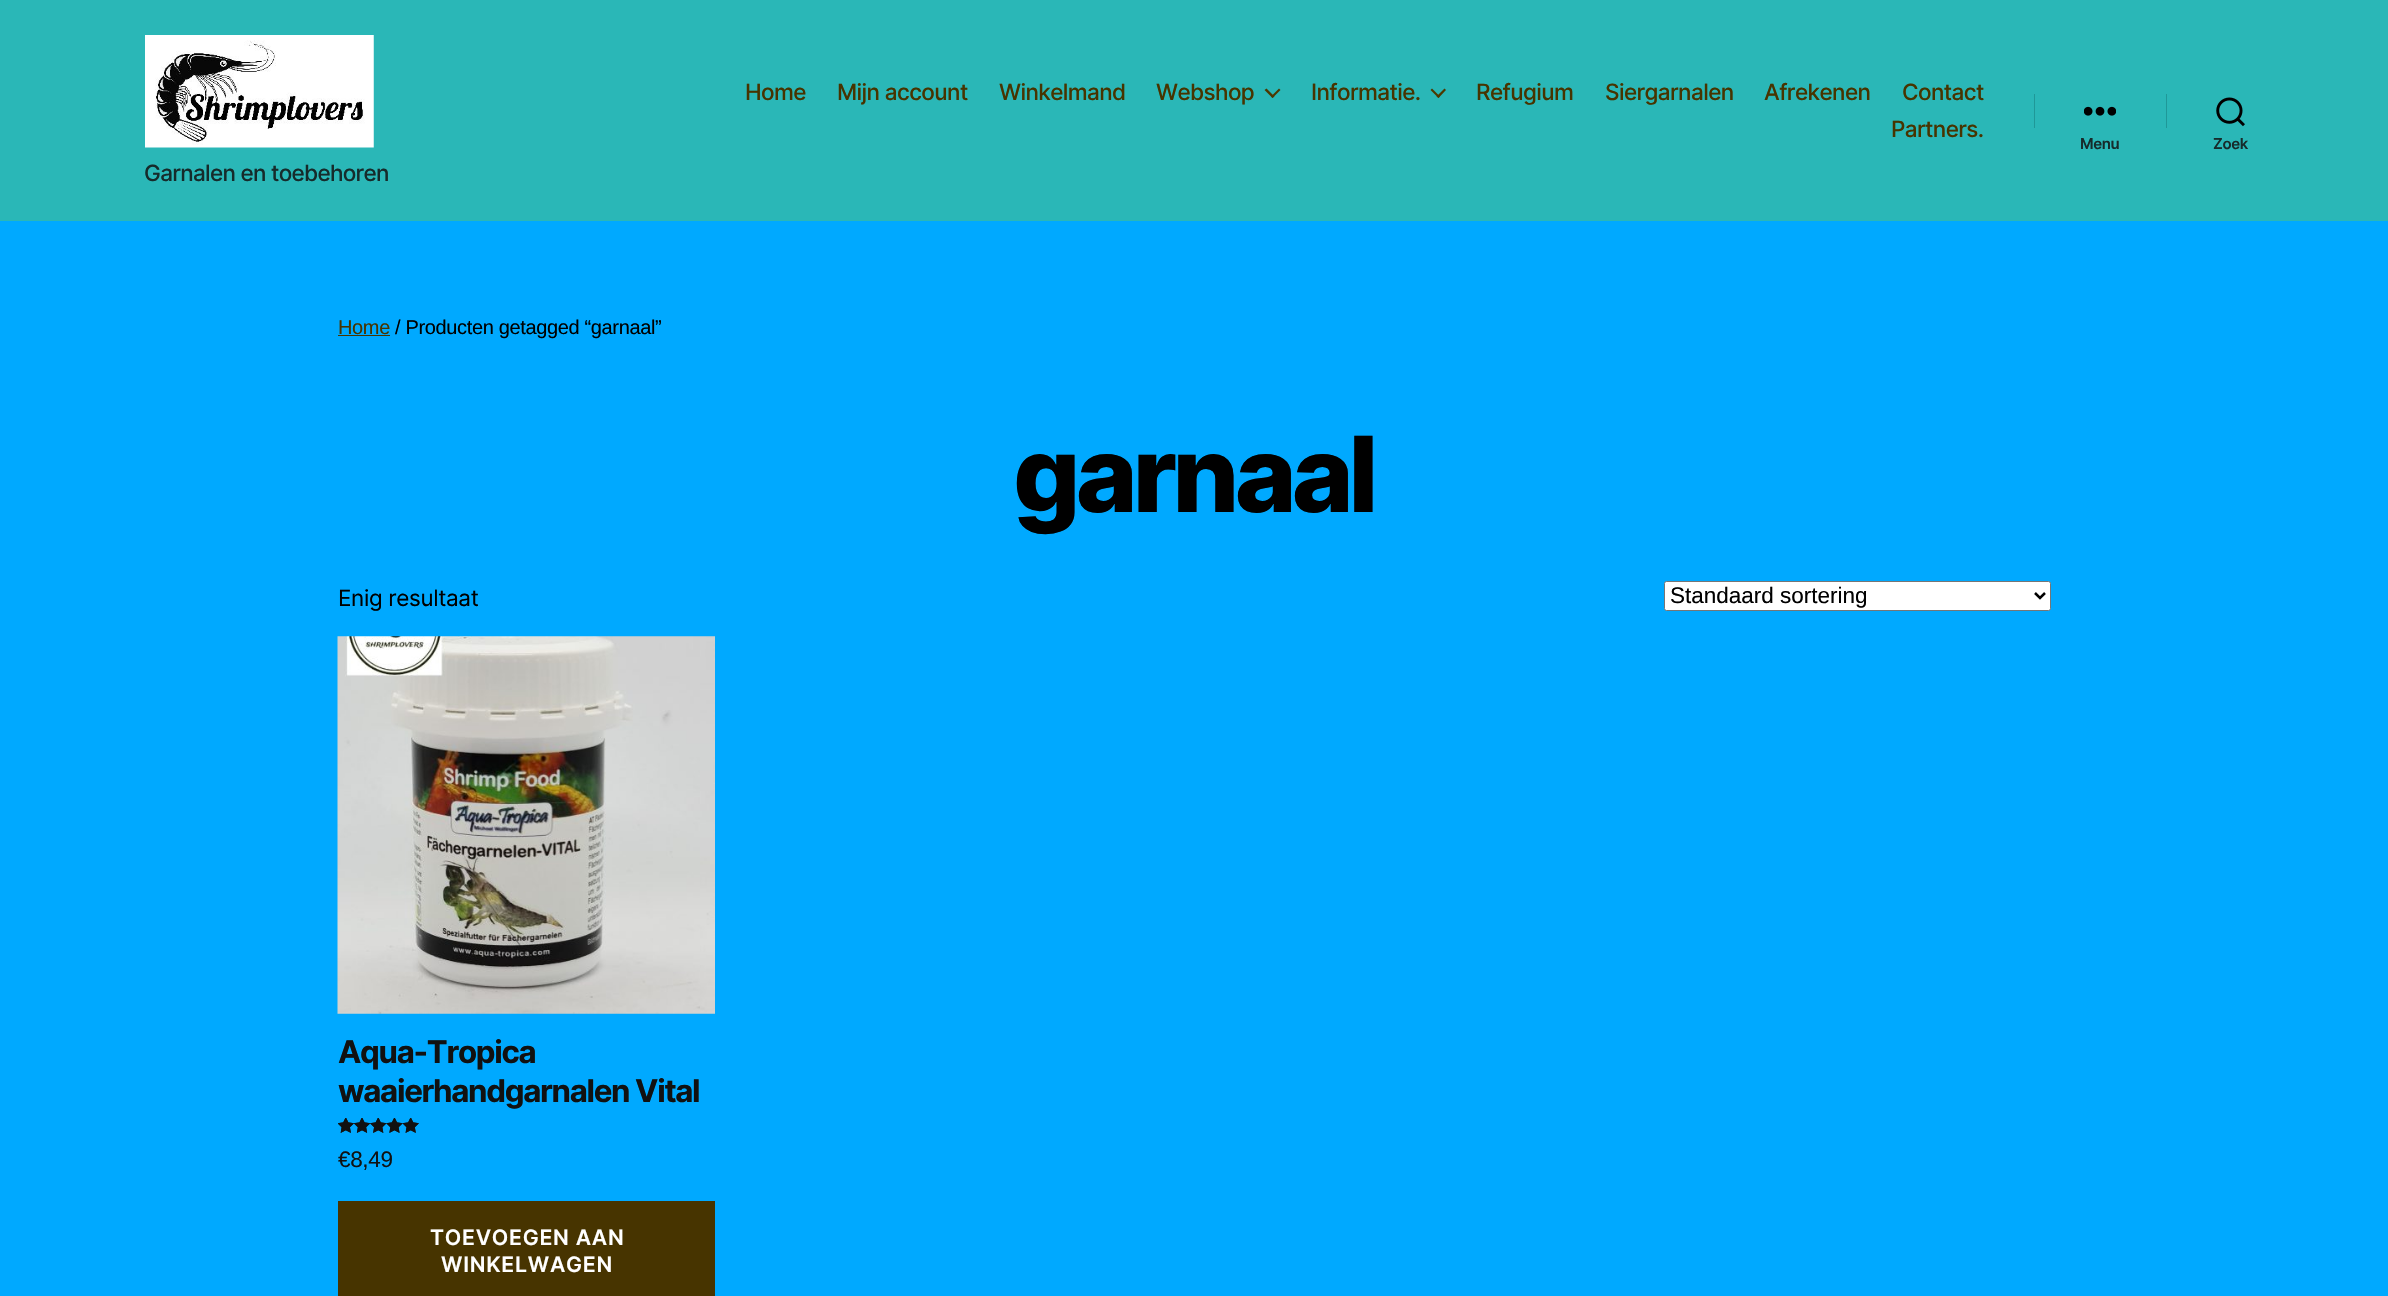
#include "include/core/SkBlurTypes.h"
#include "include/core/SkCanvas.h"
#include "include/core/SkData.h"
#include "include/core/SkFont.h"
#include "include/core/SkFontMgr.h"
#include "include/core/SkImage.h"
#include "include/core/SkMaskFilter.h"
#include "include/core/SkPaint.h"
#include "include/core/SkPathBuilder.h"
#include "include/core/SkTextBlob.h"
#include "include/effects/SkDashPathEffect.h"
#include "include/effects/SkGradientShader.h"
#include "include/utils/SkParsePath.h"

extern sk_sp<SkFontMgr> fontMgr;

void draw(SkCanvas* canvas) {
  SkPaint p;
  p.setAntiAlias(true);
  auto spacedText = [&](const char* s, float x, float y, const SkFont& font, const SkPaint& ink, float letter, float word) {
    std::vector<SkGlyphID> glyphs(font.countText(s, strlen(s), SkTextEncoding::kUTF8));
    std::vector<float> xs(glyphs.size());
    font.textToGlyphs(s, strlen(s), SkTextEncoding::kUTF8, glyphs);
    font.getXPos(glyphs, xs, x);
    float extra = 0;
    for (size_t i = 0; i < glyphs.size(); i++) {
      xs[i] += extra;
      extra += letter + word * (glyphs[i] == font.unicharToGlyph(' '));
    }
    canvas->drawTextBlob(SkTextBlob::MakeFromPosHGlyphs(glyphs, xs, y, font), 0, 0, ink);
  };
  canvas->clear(SkColorSetRGB(0, 169, 255));
  p.setColor(SkColorSetRGB(42, 183, 183));
  canvas->drawRect(SkRect::MakeLTRB(0, 0, 2388, 221), p);
  p.setColor(SkColorSetRGB(76, 56, 0));
  canvas->drawPath(SkPathBuilder().moveTo(1264.5f, 90).lineTo(1266.5f, 88.5f).lineTo(1274.5f, 96.5f).lineTo(1272.5f, 98).close().detach(), p);
  canvas->drawPath(SkPathBuilder().moveTo(1271, 96.5f).lineTo(1279, 88.5f).lineTo(1280.5f, 90).lineTo(1272.5f, 98).close().detach(), p);
  canvas->drawPath(SkPathBuilder().moveTo(1430.5f, 90).lineTo(1432, 88.5f).lineTo(1440, 96.5f).lineTo(1438.5f, 98).close().detach(), p);
  canvas->drawPath(SkPathBuilder().moveTo(1436.5f, 96.5f).lineTo(1444.5f, 88.5f).lineTo(1446, 90).lineTo(1438.5f, 98).close().detach(), p);
  p.setColor(SkColorSetRGB(31, 152, 152));
  canvas->drawRect(SkRect::MakeLTRB(2034, 94, 2035, 128), p);
  canvas->drawImageRect(SkImages::DeferredFromEncodedData(SkData::MakeFromFileName("images/1.png")), SkRect::MakeLTRB(2084, 106, 2116, 116), SkSamplingOptions());
  canvas->drawRect(SkRect::MakeLTRB(2166, 94, 2167, 128), p);
  canvas->drawImageRect(SkImages::DeferredFromEncodedData(SkData::MakeFromFileName("images/2.png")), SkRect::MakeLTRB(2216, 97, 2245, 127), SkSamplingOptions());
  canvas->drawImageRect(SkImages::DeferredFromEncodedData(SkData::MakeFromFileName("images/3.png")), SkRect::MakeLTRB(145, 35, 374, 148), SkSamplingOptions());
  p.setColor(SkColorSetRGB(71, 52, 0));
  canvas->drawRect(SkRect::MakeLTRB(338, 335, 390, 336), p);
  p.setColor(SK_ColorWHITE);
  canvas->drawRoundRect(SkRect::MakeLTRB(1664.5f, 581.5f, 2050.5f, 610.5f), 2, 2, p);
  p.setStyle(SkPaint::kStroke_Style);
  p.setStrokeWidth(1);
  p.setColor(SkColorSetRGB(118, 118, 118));
  canvas->drawRoundRect(SkRect::MakeLTRB(1664.5f, 581.5f, 2050.5f, 610.5f), 2, 2, p);
  p.setStrokeWidth(2.5f);
  p.setColor(SK_ColorBLACK);
  canvas->drawPath(SkPathBuilder().moveTo(2035, 593).lineTo(2040, 598).lineTo(2045, 593).detach(), p);
  canvas->drawImageRect(SkImages::DeferredFromEncodedData(SkData::MakeFromFileName("images/4.png")), SkRect::MakeLTRB(337, 636, 715, 1014), SkSamplingOptions());
  canvas->drawImageRect(SkImages::DeferredFromEncodedData(SkData::MakeFromFileName("images/5.png")), SkRect::MakeLTRB(338, 1118, 419, 1133), SkSamplingOptions());
  canvas->drawImageRect(SkImages::DeferredFromEncodedData(SkData::MakeFromFileName("images/6.png")), SkRect::MakeLTRB(338, 1118, 419, 1133), SkSamplingOptions());
  p.setStyle(SkPaint::kFill_Style);
  p.setColor(SkColorSetRGB(71, 52, 0));
  canvas->drawRect(SkRect::MakeLTRB(338, 1201, 715, 1296), p);
  SkFont font1(fontMgr->matchFamilyStyle("Inter", SkFontStyle(500, SkFontStyle::kNormal_Width, SkFontStyle::kUpright_Slant)), 22.5f);
  font1.setSubpixel(true);
  spacedText("Home", 745, 100, font1, p, -0.6f, 0);
  spacedText("Mijn account", 837, 100, font1, p, -0.6f, 0);
  spacedText("Winkelmand", 999, 100, font1, p, -0.6f, 0);
  spacedText("Webshop", 1156, 100, font1, p, -0.6f, 0);
  spacedText("Informatie.", 1311, 100, font1, p, -0.6f, 0);
  spacedText("Refugium", 1476, 100, font1, p, -0.6f, 0);
  spacedText("Siergarnalen", 1605, 100, font1, p, -0.6f, 0);
  spacedText("Afrekenen", 1764, 100, font1, p, -0.6f, 0);
  spacedText("Contact", 1902, 100, font1, p, -0.6f, 0);
  spacedText("Partners.", 1891, 137, font1, p, -0.6f, 0);
  SkFont font2(fontMgr->matchFamilyStyle("Inter", SkFontStyle(600, SkFontStyle::kNormal_Width, SkFontStyle::kUpright_Slant)), 15);
  font2.setSubpixel(true);
  p.setColor(SkColorSetRGB(22, 43, 43));
  spacedText("Menu", 2080, 149, font2, p, -0.35f, 0);
  spacedText("Zoek", 2213, 149, font2, p, -0.35f, 0);
  spacedText("Garnalen en toebehoren", 144, 181, font1, p, -0.7f, 0);
  SkFont font3(fontMgr->matchFamilyStyle("Liberation Sans", SkFontStyle::Normal()), 20);
  font3.setSubpixel(true);
  p.setColor(SkColorSetRGB(71, 52, 0));
  spacedText("Home", 338, 334, font3, p, -0.35f, 0);
  p.setColor(SK_ColorBLACK);
  spacedText("/ Producten getagged “garnaal”", 395, 334, font3, p, -0.35f, 0);
  SkFont font4(fontMgr->matchFamilyStyle("Inter", SkFontStyle(800, SkFontStyle::kNormal_Width, SkFontStyle::kUpright_Slant)), 105);
  font4.setSubpixel(true);
  spacedText("garnaal", 1013, 512, font4, p, -4.5f, 0);
  SkFont font5(fontMgr->matchFamilyStyle("Inter", SkFontStyle::Normal()), 22.5f);
  font5.setSubpixel(true);
  spacedText("Enig resultaat", 338, 606, font5, p, -0.35f, 0);
  SkFont font6(fontMgr->matchFamilyStyle("Liberation Sans", SkFontStyle::Normal()), 22.5f);
  font6.setSubpixel(true);
  canvas->drawString("Standaard sortering", 1670, 603, font6, p);
  SkFont font7(fontMgr->matchFamilyStyle("Inter", SkFontStyle::Bold()), 31.25f);
  font7.setSubpixel(true);
  p.setColor(SkColorSetRGB(17, 17, 17));
  spacedText("Aqua-Tropica", 338, 1063, font7, p, -1.3f, 0);
  spacedText("waaierhandgarnalen Vital", 338, 1102, font7, p, -1.3f, 0);
  spacedText("€8,49", 338, 1167, font6, p, -0.35f, 0);
  SkFont font8(fontMgr->matchFamilyStyle("Inter", SkFontStyle(600, SkFontStyle::kNormal_Width, SkFontStyle::kUpright_Slant)), 21.25f);
  font8.setSubpixel(true);
  p.setColor(SK_ColorWHITE);
  spacedText("TOEVOEGEN AAN", 430, 1245, font8, p, 0.75f, 0);
  spacedText("WINKELWAGEN", 441, 1272, font8, p, 0.75f, 0);
}
